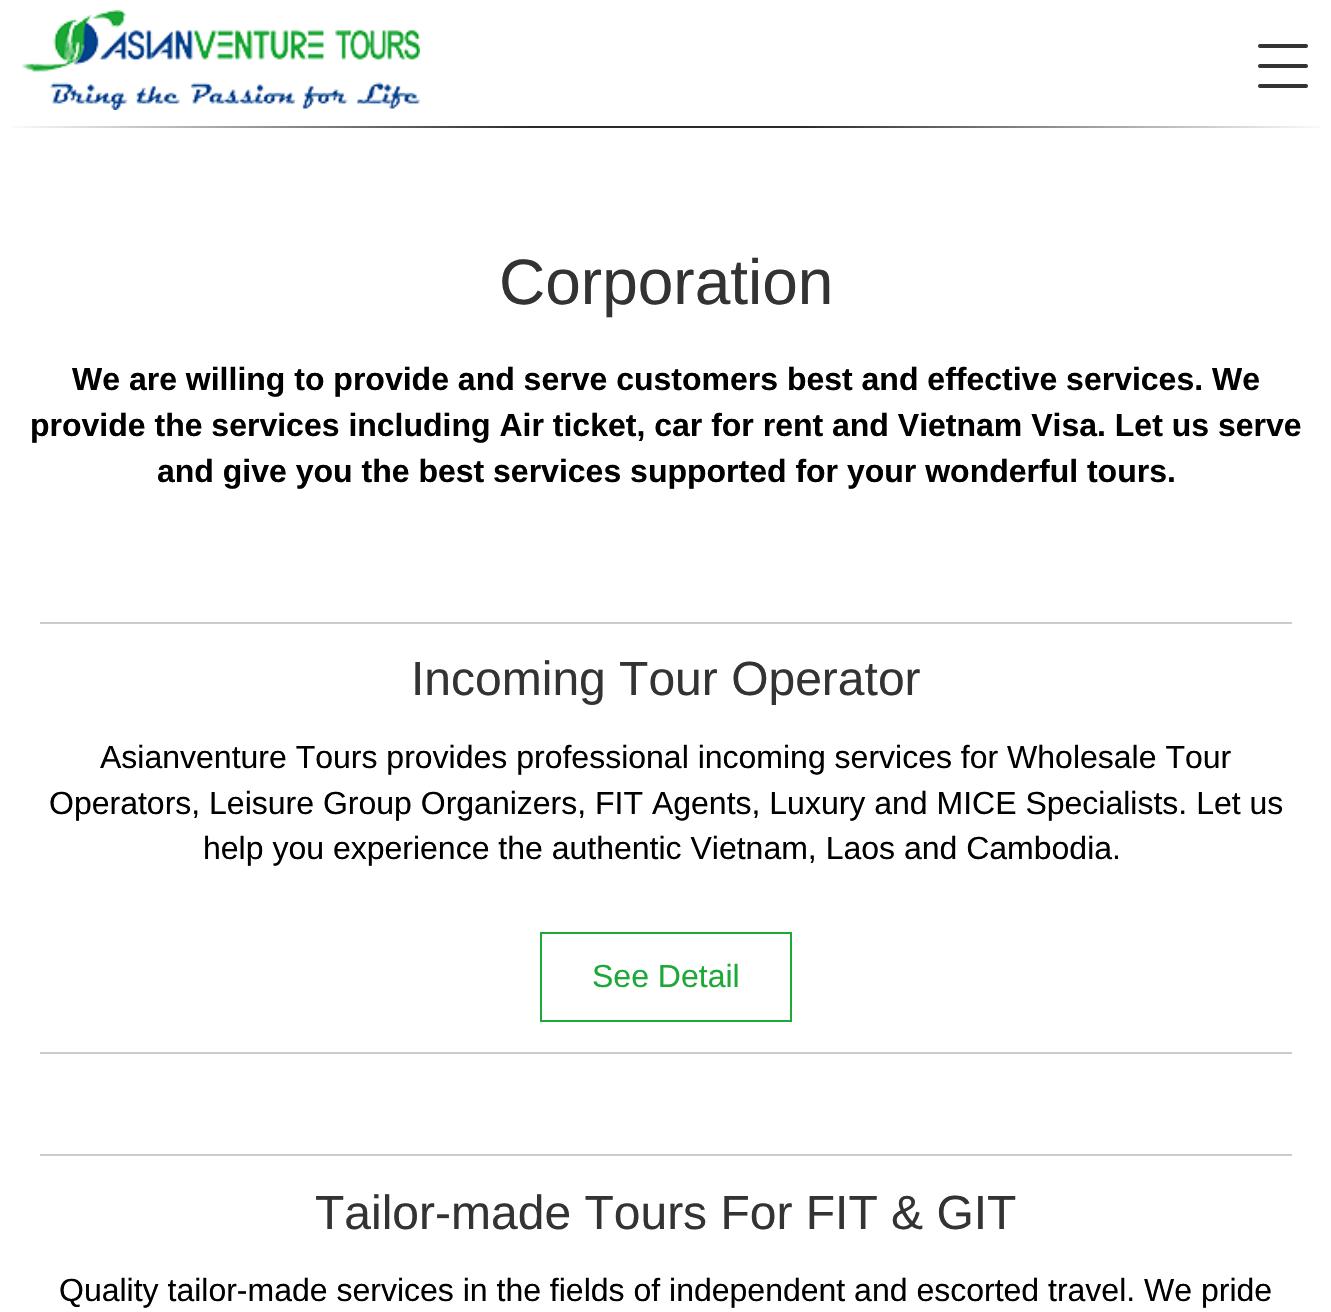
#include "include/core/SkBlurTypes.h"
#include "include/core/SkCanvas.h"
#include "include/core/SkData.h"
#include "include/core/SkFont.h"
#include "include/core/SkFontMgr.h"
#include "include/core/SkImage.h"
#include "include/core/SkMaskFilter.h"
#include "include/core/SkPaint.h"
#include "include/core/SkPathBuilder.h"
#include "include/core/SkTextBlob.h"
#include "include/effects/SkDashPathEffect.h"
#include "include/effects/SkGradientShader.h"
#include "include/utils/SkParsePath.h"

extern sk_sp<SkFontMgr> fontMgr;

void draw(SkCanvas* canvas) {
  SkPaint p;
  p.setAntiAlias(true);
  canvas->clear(SK_ColorWHITE);
  p.setColor(SkColorSetRGB(51, 51, 51));
  canvas->drawRoundRect(SkRect::MakeLTRB(1258, 44, 1308, 48), 2, 2, p);
  canvas->drawRoundRect(SkRect::MakeLTRB(1258, 64, 1308, 68), 2, 2, p);
  canvas->drawRoundRect(SkRect::MakeLTRB(1258, 84, 1308, 88), 2, 2, p);
  canvas->drawImageRect(SkImages::DeferredFromEncodedData(SkData::MakeFromFileName("images/1.png")), SkRect::MakeLTRB(11, 126, 1321, 128), SkSamplingOptions());
  canvas->drawImageRect(SkImages::DeferredFromEncodedData(SkData::MakeFromFileName("images/2.png")), SkRect::MakeLTRB(21, 10, 420, 110), SkSamplingOptions());
  p.setColor(SkColorSetRGB(204, 204, 204));
  canvas->drawRect(SkRect::MakeLTRB(40, 622, 1292, 624), p);
  canvas->drawRect(SkRect::MakeLTRB(40, 1052, 1292, 1054), p);
  p.setStyle(SkPaint::kStroke_Style);
  p.setStrokeWidth(2);
  p.setColor(SkColorSetRGB(29, 168, 56));
  canvas->drawRect(SkRect::MakeLTRB(541, 933, 791, 1021), p);
  p.setStyle(SkPaint::kFill_Style);
  p.setColor(SkColorSetRGB(204, 204, 204));
  canvas->drawRect(SkRect::MakeLTRB(40, 1154, 1292, 1156), p);
  SkFont font1(fontMgr->matchFamilyStyle("Liberation Sans", SkFontStyle::Normal()), 64);
  font1.setSubpixel(true);
  p.setColor(SkColorSetRGB(51, 51, 51));
  canvas->drawString("Corporation", 499, 304, font1, p);
  SkFont font2(fontMgr->matchFamilyStyle("Liberation Sans", SkFontStyle::Bold()), 32);
  font2.setSubpixel(true);
  p.setColor(SK_ColorBLACK);
  canvas->drawString("We are willing to provide and serve customers best and effective services. We", 72, 390, font2, p);
  canvas->drawString("provide the services including Air ticket, car for rent and Vietnam Visa. Let us serve", 30, 436, font2, p);
  canvas->drawString("and give you the best services supported for your wonderful tours.", 157, 482, font2, p);
  SkFont font3(fontMgr->matchFamilyStyle("Liberation Sans", SkFontStyle::Normal()), 48);
  font3.setSubpixel(true);
  p.setColor(SkColorSetRGB(51, 51, 51));
  canvas->drawString("Incoming Tour Operator", 411, 695, font3, p);
  SkFont font4(fontMgr->matchFamilyStyle("Liberation Sans", SkFontStyle::Normal()), 32);
  font4.setSubpixel(true);
  p.setColor(SK_ColorBLACK);
  canvas->drawString("Asianventure Tours provides professional incoming services for Wholesale Tour", 100, 768, font4, p);
  canvas->drawString("Operators, Leisure Group Organizers, FIT Agents, Luxury and MICE Specialists. Let us", 49, 814, font4, p);
  canvas->drawString("help you experience the authentic Vietnam, Laos and Cambodia.", 203, 859, font4, p);
  p.setColor(SkColorSetRGB(29, 168, 56));
  canvas->drawString("See Detail", 592, 987, font4, p);
  p.setColor(SkColorSetRGB(51, 51, 51));
  canvas->drawString("Tailor-made Tours For FIT & GIT", 315, 1229, font3, p);
  p.setColor(SK_ColorBLACK);
  canvas->drawString("Quality tailor-made services in the fields of independent and escorted travel. We pride", 59, 1301, font4, p);
}
